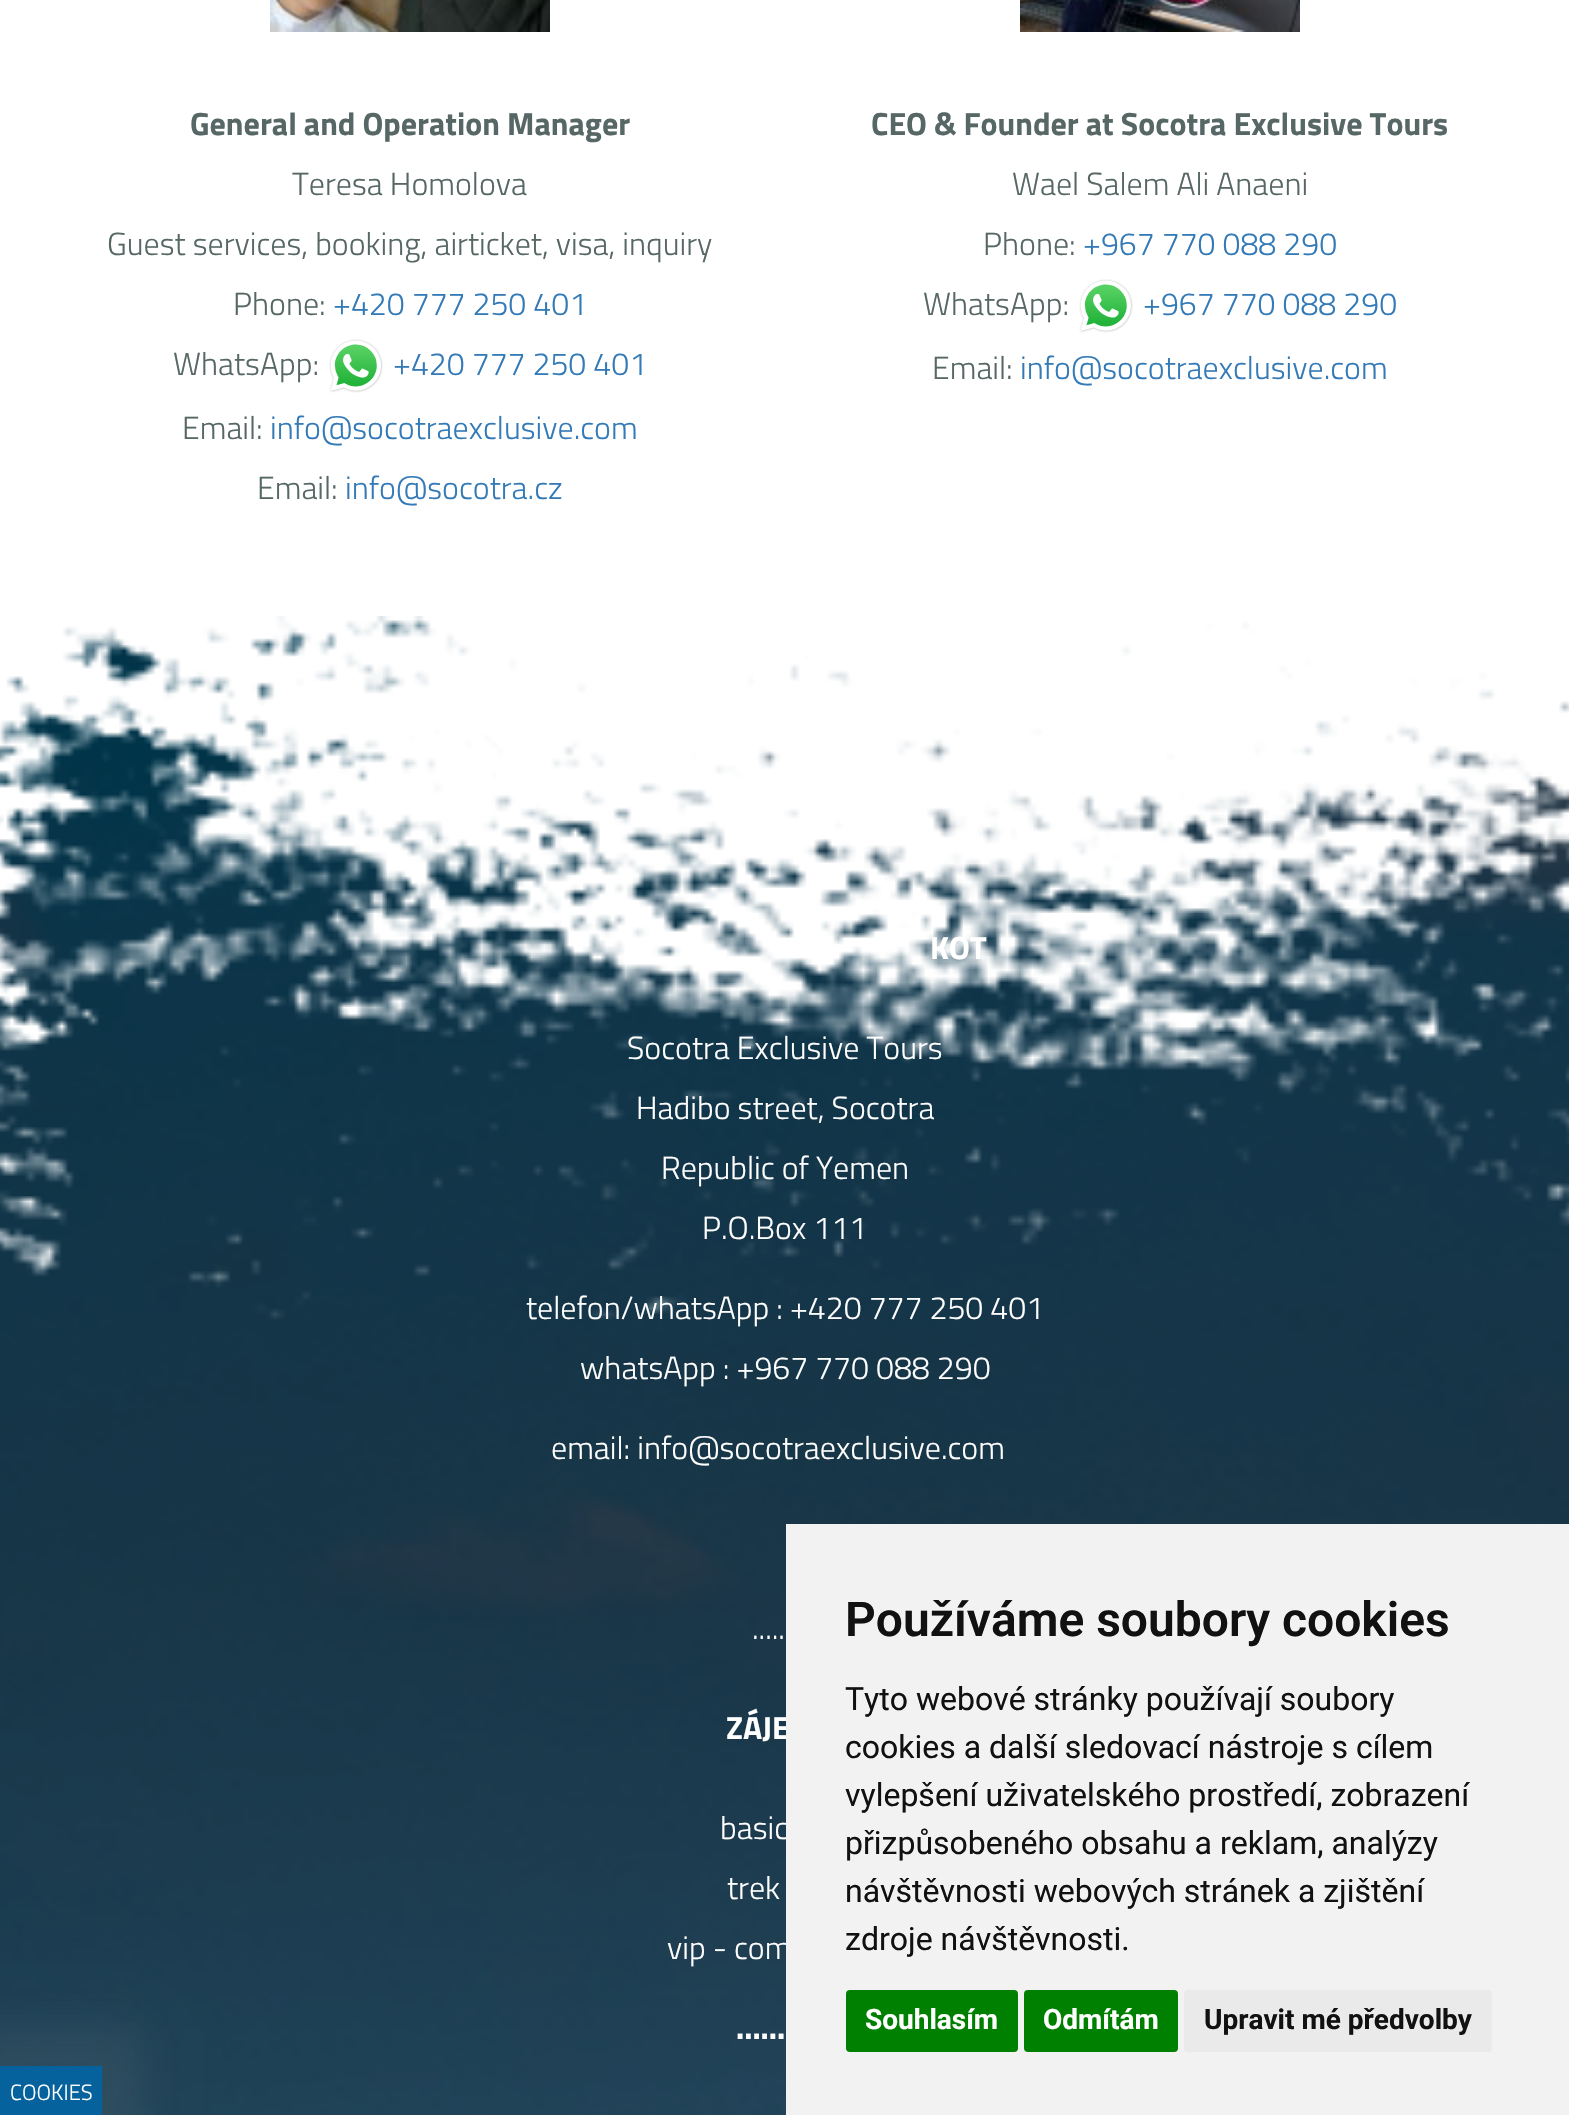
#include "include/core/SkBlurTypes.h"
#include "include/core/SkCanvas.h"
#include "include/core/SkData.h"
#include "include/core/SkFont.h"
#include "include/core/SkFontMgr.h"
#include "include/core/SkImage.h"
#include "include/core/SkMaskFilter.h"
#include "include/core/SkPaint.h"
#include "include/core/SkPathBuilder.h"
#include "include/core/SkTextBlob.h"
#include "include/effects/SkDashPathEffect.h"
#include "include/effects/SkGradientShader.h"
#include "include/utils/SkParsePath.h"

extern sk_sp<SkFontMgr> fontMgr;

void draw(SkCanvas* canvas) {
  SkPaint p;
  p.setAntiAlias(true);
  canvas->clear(SK_ColorWHITE);
  canvas->drawImageRect(SkImages::DeferredFromEncodedData(SkData::MakeFromFileName("images/1.png")), SkRect::MakeLTRB(270, 0, 550, 32), SkSamplingOptions());
  canvas->drawImageRect(SkImages::DeferredFromEncodedData(SkData::MakeFromFileName("images/2.png")), SkRect::MakeLTRB(329, 339, 383, 393), SkSamplingOptions());
  canvas->drawImageRect(SkImages::DeferredFromEncodedData(SkData::MakeFromFileName("images/3.png")), SkRect::MakeLTRB(1020, 0, 1300, 32), SkSamplingOptions());
  canvas->drawImageRect(SkImages::DeferredFromEncodedData(SkData::MakeFromFileName("images/4.png")), SkRect::MakeLTRB(1079, 279, 1133, 333), SkSamplingOptions());
  canvas->drawImageRect(SkImages::DeferredFromEncodedData(SkData::MakeFromFileName("images/5.png")), SkRect::MakeLTRB(0, 616, 1569, 2115), SkSamplingOptions());
  p.setColor(SkColorSetARGB(26, 179, 179, 179));
  p.setMaskFilter(SkMaskFilter::MakeBlur(kNormal_SkBlurStyle, 20));
  canvas->drawRect(SkRect::MakeLTRB(-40, 2026, 142, 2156), p);
  p.setMaskFilter(nullptr);
  p.setColor(SkColorSetRGB(6, 98, 156));
  canvas->drawRect(SkRect::MakeLTRB(0, 2066, 102, 2115), p);
  SkFont font1(fontMgr->matchFamilyStyle("Titillium Web", SkFontStyle::Bold()), 32);
  font1.setSubpixel(true);
  p.setColor(SkColorSetRGB(86, 103, 101));
  canvas->drawString("General and Operation Manager", 190, 135, font1, p);
  SkFont font2(fontMgr->matchFamilyStyle("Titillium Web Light", SkFontStyle(300, SkFontStyle::kNormal_Width, SkFontStyle::kUpright_Slant)), 32);
  font2.setSubpixel(true);
  canvas->drawString("Teresa Homolova", 292, 195, font2, p);
  canvas->drawString("Guest services, booking, airticket, visa, inquiry", 107, 255, font2, p);
  canvas->drawString("Phone:", 233, 315, font2, p);
  p.setColor(SkColorSetRGB(51, 122, 183));
  canvas->drawString("+420 777 250 401", 333, 315, font2, p);
  p.setColor(SkColorSetRGB(86, 103, 101));
  canvas->drawString("WhatsApp:", 173, 375, font2, p);
  p.setColor(SkColorSetRGB(51, 122, 183));
  canvas->drawString("+420 777 250 401", 393, 375, font2, p);
  p.setColor(SkColorSetRGB(86, 103, 101));
  canvas->drawString("Email:", 182, 439, font2, p);
  p.setColor(SkColorSetRGB(51, 122, 183));
  canvas->drawString("info@socotraexclusive.com", 270, 439, font2, p);
  p.setColor(SkColorSetRGB(86, 103, 101));
  canvas->drawString("Email:", 257, 499, font2, p);
  p.setColor(SkColorSetRGB(51, 122, 183));
  canvas->drawString("info@socotra.cz", 345, 499, font2, p);
  p.setColor(SkColorSetRGB(86, 103, 101));
  canvas->drawString("CEO & Founder at Socotra Exclusive Tours", 871, 135, font1, p);
  canvas->drawString("Wael Salem Ali Anaeni", 1012, 195, font2, p);
  canvas->drawString("Phone:", 983, 255, font2, p);
  p.setColor(SkColorSetRGB(51, 122, 183));
  canvas->drawString("+967 770 088 290", 1083, 255, font2, p);
  p.setColor(SkColorSetRGB(86, 103, 101));
  canvas->drawString("WhatsApp:", 923, 315, font2, p);
  p.setColor(SkColorSetRGB(51, 122, 183));
  canvas->drawString("+967 770 088 290", 1143, 315, font2, p);
  p.setColor(SkColorSetRGB(86, 103, 101));
  canvas->drawString("Email:", 932, 379, font2, p);
  p.setColor(SkColorSetRGB(51, 122, 183));
  canvas->drawString("info@socotraexclusive.com", 1020, 379, font2, p);
  p.setColor(SK_ColorWHITE);
  canvas->drawString("KOT", 930, 959, font1, p);
  canvas->drawString("Socotra Exclusive Tours", 627, 1059, font2, p);
  canvas->drawString("Hadibo street, Socotra", 636, 1119, font2, p);
  canvas->drawString("Republic of Yemen", 661, 1179, font2, p);
  canvas->drawString("P.O.Box 111", 702, 1239, font2, p);
  canvas->drawString("telefon/whatsApp : +420 777 250 401", 526, 1319, font2, p);
  canvas->drawString("whatsApp : +967 770 088 290", 580, 1379, font2, p);
  canvas->drawString("email: info@socotraexclusive.com", 551, 1459, font2, p);
  canvas->drawString(".....", 752, 1639, font2, p);
  canvas->drawString("ZÁJE", 726, 1739, font1, p);
  canvas->drawString("basic", 720, 1839, font2, p);
  canvas->drawString("trek", 727, 1899, font2, p);
  canvas->drawString("vip - com", 667, 1959, font2, p);
  canvas->drawString("......", 736, 2039, font1, p);
  p.setColor(SkColorSetRGB(242, 242, 242));
  canvas->drawRect(SkRect::MakeLTRB(786, 1524, 1569, 2115), p);
  SkFont font3(fontMgr->matchFamilyStyle("Roboto", SkFontStyle(600, SkFontStyle::kNormal_Width, SkFontStyle::kUpright_Slant)), 48);
  font3.setSubpixel(true);
  p.setColor(SkColorSetRGB(17, 17, 17));
  canvas->drawString("Používáme soubory cookies", 845, 1636, font3, p);
  SkFont font4(fontMgr->matchFamilyStyle("Roboto", SkFontStyle::Normal()), 32);
  font4.setSubpixel(true);
  canvas->drawString("Tyto webové stránky používají soubory", 845, 1710, font4, p);
  canvas->drawString("cookies a další sledovací nástroje s cílem", 845, 1758, font4, p);
  canvas->drawString("vylepšení uživatelského prostředí, zobrazení", 845, 1806, font4, p);
  canvas->drawString("přizpůsobeného obsahu a reklam, analýzy", 845, 1854, font4, p);
  canvas->drawString("návštěvnosti webových stránek a zjištění", 845, 1902, font4, p);
  canvas->drawString("zdroje návštěvnosti.", 845, 1950, font4, p);
  p.setColor(SkColorSetRGB(0, 128, 0));
  canvas->drawRoundRect(SkRect::MakeLTRB(846, 1990, 1018, 2052), 4, 4, p);
  SkFont font5(fontMgr->matchFamilyStyle("Roboto", SkFontStyle::Bold()), 28);
  font5.setSubpixel(true);
  p.setColor(SK_ColorWHITE);
  canvas->drawString("Souhlasím", 865, 2029, font5, p);
  p.setColor(SkColorSetRGB(0, 128, 0));
  canvas->drawRoundRect(SkRect::MakeLTRB(1024, 1990, 1178, 2052), 4, 4, p);
  p.setColor(SK_ColorWHITE);
  canvas->drawString("Odmítám", 1043, 2029, font5, p);
  p.setColor(SkColorSetRGB(234, 234, 234));
  canvas->drawRoundRect(SkRect::MakeLTRB(1184, 1990, 1492, 2052), 4, 4, p);
  p.setColor(SkColorSetRGB(17, 17, 17));
  canvas->drawString("Upravit mé předvolby", 1204, 2029, font5, p);
  SkFont font6(fontMgr->matchFamilyStyle("Titillium Web Light", SkFontStyle(300, SkFontStyle::kNormal_Width, SkFontStyle::kUpright_Slant)), 22);
  font6.setSubpixel(true);
  p.setColor(SK_ColorWHITE);
  canvas->drawString("COOKIES", 10, 2100, font6, p);
}
